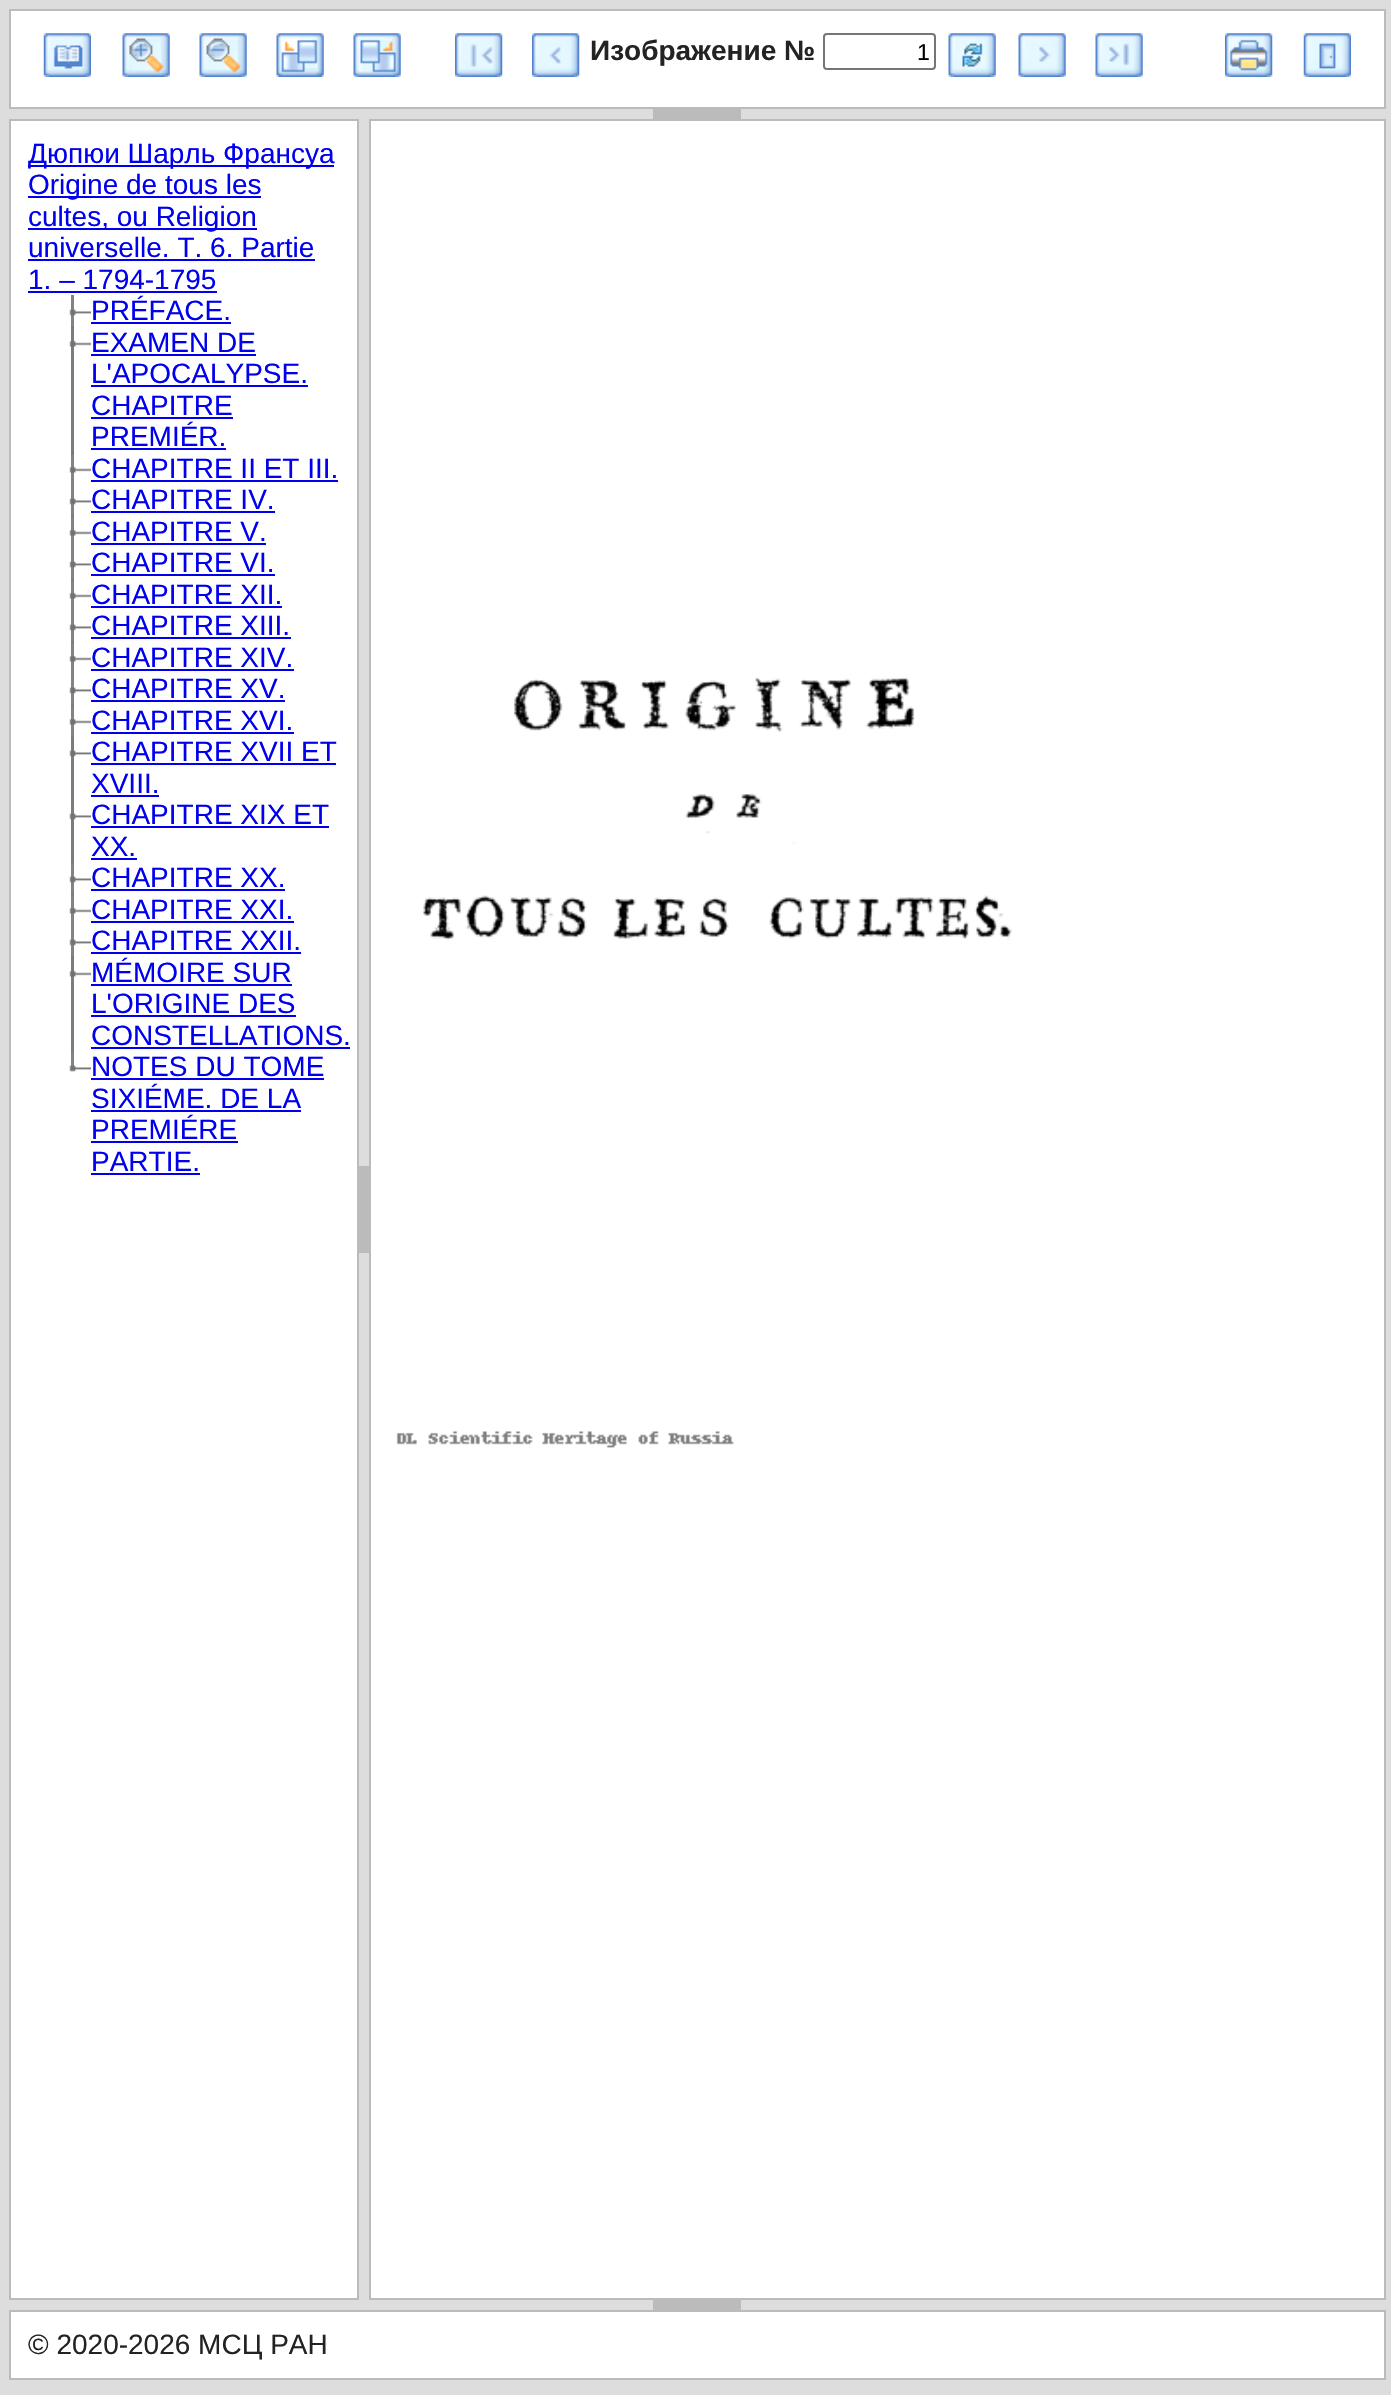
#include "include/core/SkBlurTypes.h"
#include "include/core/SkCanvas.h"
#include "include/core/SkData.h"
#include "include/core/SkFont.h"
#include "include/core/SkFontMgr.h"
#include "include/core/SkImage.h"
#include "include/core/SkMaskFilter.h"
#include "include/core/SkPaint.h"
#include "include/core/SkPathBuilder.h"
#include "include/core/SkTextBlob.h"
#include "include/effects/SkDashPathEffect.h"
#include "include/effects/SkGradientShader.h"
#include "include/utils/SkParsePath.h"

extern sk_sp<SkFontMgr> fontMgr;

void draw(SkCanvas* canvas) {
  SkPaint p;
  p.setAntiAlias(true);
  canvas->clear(SkColorSetRGB(221, 221, 221));
  p.setColor(SK_ColorWHITE);
  canvas->drawRect(SkRect::MakeLTRB(10, 10, 1385, 108), p);
  p.setStyle(SkPaint::kStroke_Style);
  p.setStrokeWidth(2);
  p.setColor(SkColorSetRGB(187, 187, 187));
  canvas->drawRect(SkRect::MakeLTRB(10, 10, 1385, 108), p);
  canvas->drawImageRect(SkImages::DeferredFromEncodedData(SkData::MakeFromFileName("images/1.png")), SkRect::MakeLTRB(43, 33, 91, 77), SkSamplingOptions());
  canvas->drawImageRect(SkImages::DeferredFromEncodedData(SkData::MakeFromFileName("images/2.png")), SkRect::MakeLTRB(122, 33, 170, 77), SkSamplingOptions());
  canvas->drawImageRect(SkImages::DeferredFromEncodedData(SkData::MakeFromFileName("images/3.png")), SkRect::MakeLTRB(199, 33, 247, 77), SkSamplingOptions());
  canvas->drawImageRect(SkImages::DeferredFromEncodedData(SkData::MakeFromFileName("images/4.png")), SkRect::MakeLTRB(276, 33, 324, 77), SkSamplingOptions());
  canvas->drawImageRect(SkImages::DeferredFromEncodedData(SkData::MakeFromFileName("images/5.png")), SkRect::MakeLTRB(353, 33, 401, 77), SkSamplingOptions());
  canvas->drawImageRect(SkImages::DeferredFromEncodedData(SkData::MakeFromFileName("images/6.png")), SkRect::MakeLTRB(455, 33, 503, 77), SkSamplingOptions());
  canvas->drawImageRect(SkImages::DeferredFromEncodedData(SkData::MakeFromFileName("images/7.png")), SkRect::MakeLTRB(532, 33, 580, 77), SkSamplingOptions());
  p.setColor(SkColorSetRGB(118, 118, 118));
  canvas->drawRoundRect(SkRect::MakeLTRB(824, 34, 935, 69), 3, 3, p);
  canvas->drawImageRect(SkImages::DeferredFromEncodedData(SkData::MakeFromFileName("images/8.png")), SkRect::MakeLTRB(948, 33, 996, 77), SkSamplingOptions());
  canvas->drawImageRect(SkImages::DeferredFromEncodedData(SkData::MakeFromFileName("images/9.png")), SkRect::MakeLTRB(1018, 33, 1066, 77), SkSamplingOptions());
  canvas->drawImageRect(SkImages::DeferredFromEncodedData(SkData::MakeFromFileName("images/10.png")), SkRect::MakeLTRB(1095, 33, 1143, 77), SkSamplingOptions());
  canvas->drawImageRect(SkImages::DeferredFromEncodedData(SkData::MakeFromFileName("images/11.png")), SkRect::MakeLTRB(1225, 33, 1273, 77), SkSamplingOptions());
  canvas->drawImageRect(SkImages::DeferredFromEncodedData(SkData::MakeFromFileName("images/12.png")), SkRect::MakeLTRB(1303, 33, 1351, 77), SkSamplingOptions());
  p.setStyle(SkPaint::kFill_Style);
  p.setColor(SkColorSetRGB(187, 187, 187));
  canvas->drawRect(SkRect::MakeLTRB(653, 109, 741, 119), p);
  p.setColor(SK_ColorWHITE);
  canvas->drawRect(SkRect::MakeLTRB(11, 121, 357, 2298), p);
  p.setColor(SkColorSetRGB(124, 124, 124));
  canvas->drawRect(SkRect::MakeLTRB(71, 957, 74, 1052), p);
  p.setColor(SkColorSetRGB(131, 131, 131));
  canvas->drawRect(SkRect::MakeLTRB(71, 894, 74, 926), p);
  canvas->drawRect(SkRect::MakeLTRB(71, 705, 74, 737), p);
  canvas->drawRect(SkRect::MakeLTRB(71, 642, 74, 674), p);
  canvas->drawRect(SkRect::MakeLTRB(71, 579, 74, 611), p);
  canvas->drawRect(SkRect::MakeLTRB(71, 516, 74, 548), p);
  canvas->drawRect(SkRect::MakeLTRB(71, 453, 74, 485), p);
  p.setColor(SkColorSetRGB(124, 124, 124));
  canvas->drawRect(SkRect::MakeLTRB(71, 327, 74, 454), p);
  p.setColor(SkColorSetRGB(114, 114, 114));
  canvas->drawRect(SkRect::MakeLTRB(71, 453, 74, 454), p);
  p.setStyle(SkPaint::kStroke_Style);
  p.setColor(SkColorSetRGB(187, 187, 187));
  canvas->drawRect(SkRect::MakeLTRB(10, 120, 358, 2299), p);
  p.setStyle(SkPaint::kFill_Style);
  p.setColor(SkColorSetRGB(0, 0, 238));
  canvas->drawRect(SkRect::MakeLTRB(28, 165, 334, 167), p);
  canvas->drawRect(SkRect::MakeLTRB(28, 196, 261, 198), p);
  canvas->drawRect(SkRect::MakeLTRB(28, 228, 257, 230), p);
  canvas->drawRect(SkRect::MakeLTRB(28, 259, 315, 261), p);
  canvas->drawRect(SkRect::MakeLTRB(28, 291, 217, 293), p);
  p.setColor(SkColorSetRGB(131, 131, 131));
  canvas->drawRect(SkRect::MakeLTRB(71, 295, 74, 328), p);
  p.setColor(SkColorSetRGB(115, 115, 115));
  canvas->drawRect(SkRect::MakeLTRB(71, 327, 74, 328), p);
  canvas->drawImageRect(SkImages::DeferredFromEncodedData(SkData::MakeFromFileName("images/13.png")), SkRect::MakeLTRB(69, 309, 91, 316), SkSamplingOptions());
  p.setColor(SkColorSetRGB(0, 0, 238));
  canvas->drawRect(SkRect::MakeLTRB(91, 322, 231, 324), p);
  canvas->drawImageRect(SkImages::DeferredFromEncodedData(SkData::MakeFromFileName("images/14.png")), SkRect::MakeLTRB(69, 340, 91, 347), SkSamplingOptions());
  canvas->drawRect(SkRect::MakeLTRB(91, 354, 256, 356), p);
  canvas->drawRect(SkRect::MakeLTRB(91, 385, 308, 387), p);
  canvas->drawRect(SkRect::MakeLTRB(91, 417, 233, 419), p);
  canvas->drawRect(SkRect::MakeLTRB(91, 448, 226, 450), p);
  canvas->drawImageRect(SkImages::DeferredFromEncodedData(SkData::MakeFromFileName("images/15.png")), SkRect::MakeLTRB(69, 466, 91, 473), SkSamplingOptions());
  canvas->drawRect(SkRect::MakeLTRB(91, 480, 338, 482), p);
  p.setColor(SkColorSetRGB(131, 131, 131));
  canvas->drawRect(SkRect::MakeLTRB(71, 485, 74, 517), p);
  p.setColor(SkColorSetRGB(115, 115, 115));
  canvas->drawRect(SkRect::MakeLTRB(71, 516, 74, 517), p);
  canvas->drawImageRect(SkImages::DeferredFromEncodedData(SkData::MakeFromFileName("images/13.png")), SkRect::MakeLTRB(69, 498, 91, 505), SkSamplingOptions());
  p.setColor(SkColorSetRGB(0, 0, 238));
  canvas->drawRect(SkRect::MakeLTRB(91, 511, 275, 513), p);
  canvas->drawImageRect(SkImages::DeferredFromEncodedData(SkData::MakeFromFileName("images/15.png")), SkRect::MakeLTRB(69, 529, 91, 536), SkSamplingOptions());
  canvas->drawRect(SkRect::MakeLTRB(91, 543, 266, 545), p);
  p.setColor(SkColorSetRGB(131, 131, 131));
  canvas->drawRect(SkRect::MakeLTRB(71, 548, 74, 580), p);
  p.setColor(SkColorSetRGB(115, 115, 115));
  canvas->drawRect(SkRect::MakeLTRB(71, 579, 74, 580), p);
  canvas->drawImageRect(SkImages::DeferredFromEncodedData(SkData::MakeFromFileName("images/13.png")), SkRect::MakeLTRB(69, 561, 91, 568), SkSamplingOptions());
  p.setColor(SkColorSetRGB(0, 0, 238));
  canvas->drawRect(SkRect::MakeLTRB(91, 574, 275, 576), p);
  canvas->drawImageRect(SkImages::DeferredFromEncodedData(SkData::MakeFromFileName("images/15.png")), SkRect::MakeLTRB(69, 592, 91, 599), SkSamplingOptions());
  canvas->drawRect(SkRect::MakeLTRB(91, 606, 282, 608), p);
  p.setColor(SkColorSetRGB(131, 131, 131));
  canvas->drawRect(SkRect::MakeLTRB(71, 611, 74, 643), p);
  p.setColor(SkColorSetRGB(115, 115, 115));
  canvas->drawRect(SkRect::MakeLTRB(71, 642, 74, 643), p);
  canvas->drawImageRect(SkImages::DeferredFromEncodedData(SkData::MakeFromFileName("images/13.png")), SkRect::MakeLTRB(69, 624, 91, 631), SkSamplingOptions());
  p.setColor(SkColorSetRGB(0, 0, 238));
  canvas->drawRect(SkRect::MakeLTRB(91, 637, 291, 639), p);
  canvas->drawImageRect(SkImages::DeferredFromEncodedData(SkData::MakeFromFileName("images/15.png")), SkRect::MakeLTRB(69, 655, 91, 662), SkSamplingOptions());
  canvas->drawRect(SkRect::MakeLTRB(91, 669, 294, 671), p);
  p.setColor(SkColorSetRGB(131, 131, 131));
  canvas->drawRect(SkRect::MakeLTRB(71, 674, 74, 706), p);
  p.setColor(SkColorSetRGB(115, 115, 115));
  canvas->drawRect(SkRect::MakeLTRB(71, 705, 74, 706), p);
  canvas->drawImageRect(SkImages::DeferredFromEncodedData(SkData::MakeFromFileName("images/13.png")), SkRect::MakeLTRB(69, 687, 91, 694), SkSamplingOptions());
  p.setColor(SkColorSetRGB(0, 0, 238));
  canvas->drawRect(SkRect::MakeLTRB(91, 700, 285, 702), p);
  canvas->drawImageRect(SkImages::DeferredFromEncodedData(SkData::MakeFromFileName("images/15.png")), SkRect::MakeLTRB(69, 718, 91, 725), SkSamplingOptions());
  canvas->drawRect(SkRect::MakeLTRB(91, 732, 294, 734), p);
  p.setColor(SkColorSetRGB(124, 124, 124));
  canvas->drawRect(SkRect::MakeLTRB(71, 737, 74, 863), p);
  canvas->drawImageRect(SkImages::DeferredFromEncodedData(SkData::MakeFromFileName("images/16.png")), SkRect::MakeLTRB(69, 750, 91, 757), SkSamplingOptions());
  p.setColor(SkColorSetRGB(0, 0, 238));
  canvas->drawRect(SkRect::MakeLTRB(91, 763, 336, 765), p);
  canvas->drawRect(SkRect::MakeLTRB(91, 795, 159, 797), p);
  canvas->drawImageRect(SkImages::DeferredFromEncodedData(SkData::MakeFromFileName("images/16.png")), SkRect::MakeLTRB(69, 813, 91, 820), SkSamplingOptions());
  canvas->drawRect(SkRect::MakeLTRB(91, 826, 329, 828), p);
  canvas->drawRect(SkRect::MakeLTRB(91, 858, 137, 860), p);
  p.setColor(SkColorSetRGB(131, 131, 131));
  canvas->drawRect(SkRect::MakeLTRB(71, 863, 74, 895), p);
  p.setColor(SkColorSetRGB(115, 115, 115));
  canvas->drawRect(SkRect::MakeLTRB(71, 894, 74, 895), p);
  canvas->drawImageRect(SkImages::DeferredFromEncodedData(SkData::MakeFromFileName("images/13.png")), SkRect::MakeLTRB(69, 876, 91, 883), SkSamplingOptions());
  p.setColor(SkColorSetRGB(0, 0, 238));
  canvas->drawRect(SkRect::MakeLTRB(91, 889, 285, 891), p);
  canvas->drawImageRect(SkImages::DeferredFromEncodedData(SkData::MakeFromFileName("images/15.png")), SkRect::MakeLTRB(69, 907, 91, 914), SkSamplingOptions());
  canvas->drawRect(SkRect::MakeLTRB(91, 921, 294, 923), p);
  p.setColor(SkColorSetRGB(131, 131, 131));
  canvas->drawRect(SkRect::MakeLTRB(71, 926, 74, 958), p);
  p.setColor(SkColorSetRGB(115, 115, 115));
  canvas->drawRect(SkRect::MakeLTRB(71, 957, 74, 958), p);
  canvas->drawImageRect(SkImages::DeferredFromEncodedData(SkData::MakeFromFileName("images/13.png")), SkRect::MakeLTRB(69, 939, 91, 946), SkSamplingOptions());
  p.setColor(SkColorSetRGB(0, 0, 238));
  canvas->drawRect(SkRect::MakeLTRB(91, 952, 301, 954), p);
  canvas->drawImageRect(SkImages::DeferredFromEncodedData(SkData::MakeFromFileName("images/14.png")), SkRect::MakeLTRB(69, 970, 91, 977), SkSamplingOptions());
  canvas->drawRect(SkRect::MakeLTRB(91, 984, 292, 986), p);
  canvas->drawRect(SkRect::MakeLTRB(91, 1015, 296, 1017), p);
  canvas->drawRect(SkRect::MakeLTRB(91, 1047, 350, 1049), p);
  p.setColor(SkColorSetRGB(131, 131, 131));
  canvas->drawRect(SkRect::MakeLTRB(71, 1052, 74, 1068), p);
  canvas->drawImageRect(SkImages::DeferredFromEncodedData(SkData::MakeFromFileName("images/17.png")), SkRect::MakeLTRB(69, 1065, 91, 1072), SkSamplingOptions());
  p.setColor(SkColorSetRGB(0, 0, 238));
  canvas->drawRect(SkRect::MakeLTRB(91, 1078, 324, 1080), p);
  canvas->drawRect(SkRect::MakeLTRB(91, 1110, 301, 1112), p);
  canvas->drawRect(SkRect::MakeLTRB(91, 1141, 238, 1143), p);
  canvas->drawRect(SkRect::MakeLTRB(91, 1173, 200, 1175), p);
  p.setColor(SK_ColorWHITE);
  canvas->drawRect(SkRect::MakeLTRB(370, 120, 1385, 2299), p);
  p.setStyle(SkPaint::kStroke_Style);
  p.setColor(SkColorSetRGB(187, 187, 187));
  canvas->drawRect(SkRect::MakeLTRB(370, 120, 1385, 2299), p);
  canvas->drawImageRect(SkImages::DeferredFromEncodedData(SkData::MakeFromFileName("images/18.png")), SkRect::MakeLTRB(396, 677, 1012, 1448), SkSamplingOptions());
  p.setStyle(SkPaint::kFill_Style);
  canvas->drawRect(SkRect::MakeLTRB(359, 1166, 369, 1253), p);
  canvas->drawRect(SkRect::MakeLTRB(653, 2300, 741, 2310), p);
  p.setColor(SK_ColorWHITE);
  canvas->drawRect(SkRect::MakeLTRB(10, 2311, 1385, 2379), p);
  p.setStyle(SkPaint::kStroke_Style);
  p.setColor(SkColorSetRGB(187, 187, 187));
  canvas->drawRect(SkRect::MakeLTRB(10, 2311, 1385, 2379), p);
  SkFont font1(fontMgr->matchFamilyStyle("Liberation Sans", SkFontStyle::Bold()), 28);
  font1.setSubpixel(true);
  p.setStyle(SkPaint::kFill_Style);
  p.setColor(SkColorSetRGB(35, 35, 35));
  canvas->drawString("Изображение №", 590, 60, font1, p);
  SkFont font2(fontMgr->matchFamilyStyle("Liberation Sans", SkFontStyle::Normal()), 23);
  font2.setSubpixel(true);
  p.setColor(SK_ColorBLACK);
  canvas->drawString("1", 917, 60, font2, p);
  SkFont font3(fontMgr->matchFamilyStyle("Liberation Sans", SkFontStyle::Normal()), 28);
  font3.setSubpixel(true);
  p.setColor(SkColorSetRGB(0, 0, 238));
  canvas->drawString("Дюпюи Шарль Франсуа", 28, 163, font3, p);
  canvas->drawString("Origine de tous les", 28, 194, font3, p);
  canvas->drawString("cultes, ou Religion", 28, 226, font3, p);
  canvas->drawString("universelle. T. 6. Partie", 28, 257, font3, p);
  canvas->drawString("1. – 1794-1795", 28, 289, font3, p);
  canvas->drawString("PRÉFACE.", 91, 320, font3, p);
  canvas->drawString("EXAMEN DE", 91, 352, font3, p);
  canvas->drawString("L'APOCALYPSE.", 91, 383, font3, p);
  canvas->drawString("CHAPITRE", 91, 415, font3, p);
  canvas->drawString("PREMIÉR.", 91, 446, font3, p);
  canvas->drawString("CHAPITRE II ET III.", 91, 478, font3, p);
  canvas->drawString("CHAPITRE IV.", 91, 509, font3, p);
  canvas->drawString("CHAPITRE V.", 91, 541, font3, p);
  canvas->drawString("CHAPITRE VI.", 91, 572, font3, p);
  canvas->drawString("CHAPITRE XII.", 91, 604, font3, p);
  canvas->drawString("CHAPITRE XIII.", 91, 635, font3, p);
  canvas->drawString("CHAPITRE XIV.", 91, 667, font3, p);
  canvas->drawString("CHAPITRE XV.", 91, 698, font3, p);
  canvas->drawString("CHAPITRE XVI.", 91, 730, font3, p);
  canvas->drawString("CHAPITRE XVII ET", 91, 761, font3, p);
  canvas->drawString("XVIII.", 91, 793, font3, p);
  canvas->drawString("CHAPITRE XIX ET", 91, 824, font3, p);
  canvas->drawString("XX.", 91, 856, font3, p);
  canvas->drawString("CHAPITRE XX.", 91, 887, font3, p);
  canvas->drawString("CHAPITRE XXI.", 91, 919, font3, p);
  canvas->drawString("CHAPITRE XXII.", 91, 950, font3, p);
  canvas->drawString("MÉMOIRE SUR", 91, 982, font3, p);
  canvas->drawString("L'ORIGINE DES", 91, 1013, font3, p);
  canvas->drawString("CONSTELLATIONS.", 91, 1045, font3, p);
  canvas->drawString("NOTES DU TOME", 91, 1076, font3, p);
  canvas->drawString("SIXIÉME. DE LA", 91, 1108, font3, p);
  canvas->drawString("PREMIÉRE", 91, 1139, font3, p);
  canvas->drawString("PARTIE.", 91, 1171, font3, p);
  p.setColor(SkColorSetRGB(35, 35, 35));
  canvas->drawString("© 2020-2026 МСЦ РАН", 28, 2354, font3, p);
}
